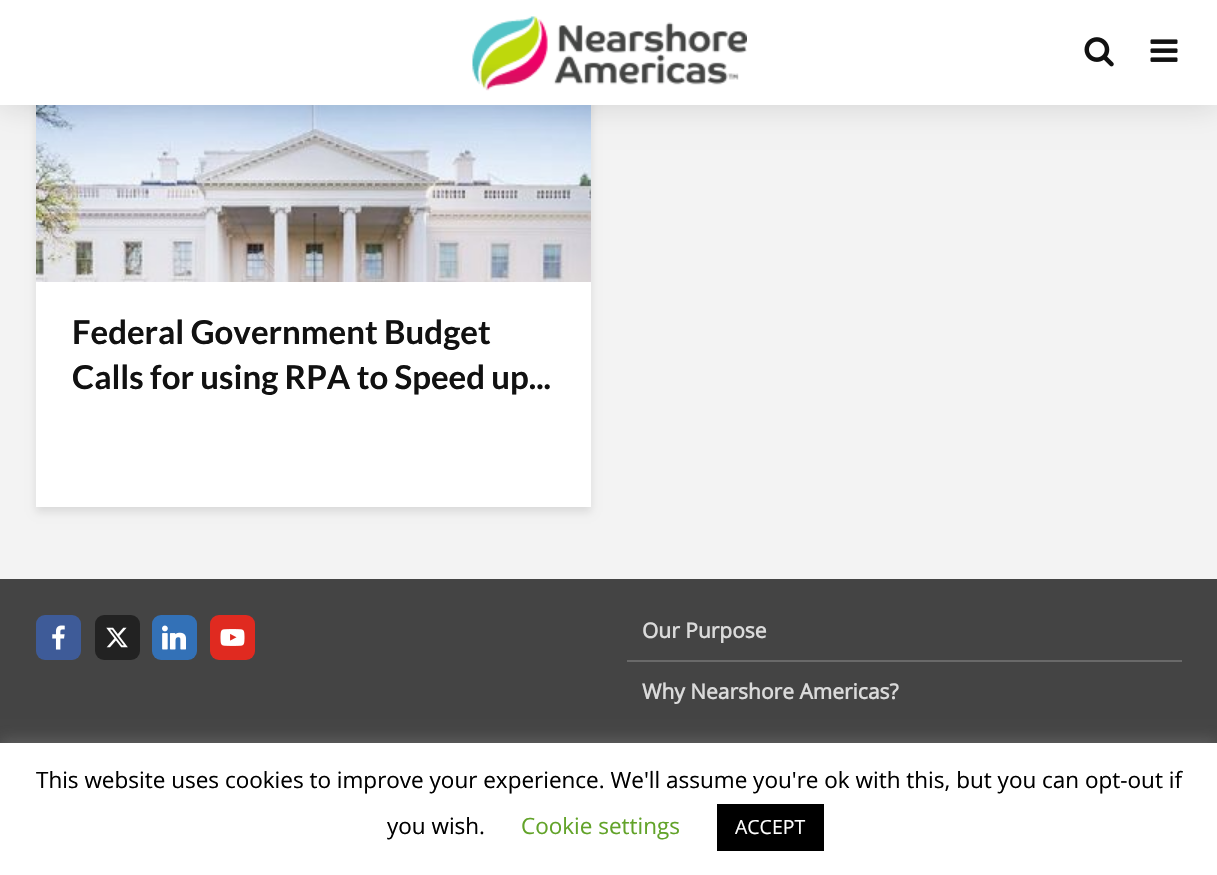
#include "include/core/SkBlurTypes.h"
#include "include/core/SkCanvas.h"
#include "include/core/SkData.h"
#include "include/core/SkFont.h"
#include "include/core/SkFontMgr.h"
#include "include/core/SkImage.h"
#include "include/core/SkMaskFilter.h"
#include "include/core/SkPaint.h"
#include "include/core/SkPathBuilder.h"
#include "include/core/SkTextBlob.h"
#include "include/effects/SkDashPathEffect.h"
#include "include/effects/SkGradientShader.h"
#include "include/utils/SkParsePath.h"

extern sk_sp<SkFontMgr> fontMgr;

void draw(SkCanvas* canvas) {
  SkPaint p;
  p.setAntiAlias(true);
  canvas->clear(SkColorSetRGB(243, 243, 243));
  p.setColor(SkColorSetARGB(26, 0, 1, 1));
  p.setMaskFilter(SkMaskFilter::MakeBlur(kNormal_SkBlurStyle, 4));
  canvas->drawRect(SkRect::MakeLTRB(36, 62, 591, 512), p);
  p.setMaskFilter(nullptr);
  canvas->drawImageRect(SkImages::DeferredFromEncodedData(SkData::MakeFromFileName("images/4.png")), SkRect::MakeLTRB(36, 105, 591, 282), SkSamplingOptions());
  p.setColor(SkColorSetARGB(38, 0, 0, 0));
  p.setMaskFilter(SkMaskFilter::MakeBlur(kNormal_SkBlurStyle, 15));
  canvas->drawRect(SkRect::MakeLTRB(0, 0, 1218, 105), p);
  p.setMaskFilter(nullptr);
  p.setColor(SK_ColorWHITE);
  canvas->drawRect(SkRect::MakeLTRB(0, 0, 1217, 105), p);
  canvas->drawImageRect(SkImages::DeferredFromEncodedData(SkData::MakeFromFileName("images/1.png")), SkRect::MakeLTRB(472, 16, 747, 91), SkSamplingOptions());
  canvas->drawImageRect(SkImages::DeferredFromEncodedData(SkData::MakeFromFileName("images/2.png")), SkRect::MakeLTRB(1084, 37, 1114, 67), SkSamplingOptions());
  canvas->drawImageRect(SkImages::DeferredFromEncodedData(SkData::MakeFromFileName("images/3.png")), SkRect::MakeLTRB(1150, 39, 1178, 62), SkSamplingOptions());
  canvas->drawRect(SkRect::MakeLTRB(36, 282, 591, 507), p);
  p.setColor(SkColorSetRGB(68, 68, 68));
  canvas->drawRect(SkRect::MakeLTRB(0, 579, 1217, 743), p);
  p.setColor(SkColorSetRGB(62, 91, 152));
  canvas->drawRoundRect(SkRect::MakeLTRB(36, 615, 81, 660), 9, 9, p);
  canvas->drawImageRect(SkImages::DeferredFromEncodedData(SkData::MakeFromFileName("images/5.png")), SkRect::MakeLTRB(52, 625, 65, 650), SkSamplingOptions());
  p.setColor(SkColorSetRGB(34, 34, 34));
  canvas->drawRoundRect(SkRect::MakeLTRB(95, 615, 140, 660), 9, 9, p);
  canvas->drawImageRect(SkImages::DeferredFromEncodedData(SkData::MakeFromFileName("images/6.png")), SkRect::MakeLTRB(106, 627, 128, 648), SkSamplingOptions());
  p.setColor(SkColorSetRGB(51, 113, 183));
  canvas->drawRoundRect(SkRect::MakeLTRB(152, 615, 197, 660), 9, 9, p);
  canvas->drawImageRect(SkImages::DeferredFromEncodedData(SkData::MakeFromFileName("images/7.png")), SkRect::MakeLTRB(162, 625, 186, 650), SkSamplingOptions());
  p.setColor(SkColorSetRGB(224, 42, 32));
  canvas->drawRoundRect(SkRect::MakeLTRB(210, 615, 255, 660), 9, 9, p);
  canvas->drawImageRect(SkImages::DeferredFromEncodedData(SkData::MakeFromFileName("images/8.png")), SkRect::MakeLTRB(220, 629, 245, 646), SkSamplingOptions());
  p.setColor(SkColorSetRGB(105, 105, 105));
  canvas->drawRect(SkRect::MakeLTRB(627, 660, 1182, 662), p);
  p.setColor(SkColorSetARGB(77, 172, 171, 171));
  p.setMaskFilter(SkMaskFilter::MakeBlur(kNormal_SkBlurStyle, 7.5f));
  canvas->drawRect(SkRect::MakeLTRB(0, 741, 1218, 875), p);
  p.setMaskFilter(nullptr);
  p.setColor(SK_ColorWHITE);
  canvas->drawRect(SkRect::MakeLTRB(0, 743, 1217, 875), p);
  p.setColor(SK_ColorBLACK);
  canvas->drawRect(SkRect::MakeLTRB(717, 804, 824, 851), p);
  SkFont font1(fontMgr->matchFamilyStyle("Lato", SkFontStyle::Bold()), 33);
  font1.setSubpixel(true);
  p.setColor(SkColorSetRGB(17, 17, 17));
  canvas->drawString("Federal Government Budget", 72, 344, font1, p);
  canvas->drawString("Calls for using RPA to Speed up...", 72, 389, font1, p);
  SkFont font2(fontMgr->matchFamilyStyle("Open Sans", SkFontStyle::Bold()), 21);
  font2.setSubpixel(true);
  p.setColor(SkColorSetRGB(218, 218, 218));
  canvas->drawString("Our Purpose", 642, 638, font2, p);
  canvas->drawString("Why Nearshore Americas?", 642, 699, font2, p);
  SkFont font3(fontMgr->matchFamilyStyle("Open Sans", SkFontStyle::Normal()), 22.5f);
  font3.setSubpixel(true);
  p.setColor(SK_ColorBLACK);
  canvas->drawString("This website uses cookies to improve your experience. We'll assume you're ok with this, but you can opt-out if", 36, 788, font3, p);
  canvas->drawString("you wish.", 387, 834, font3, p);
  p.setColor(SkColorSetRGB(98, 163, 41));
  canvas->drawString("Cookie settings", 521, 834, font3, p);
  SkFont font4(fontMgr->matchFamilyStyle("Open Sans", SkFontStyle::Normal()), 19.5f);
  font4.setSubpixel(true);
  p.setColor(SK_ColorWHITE);
  canvas->drawString("ACCEPT", 735, 834, font4, p);
}
